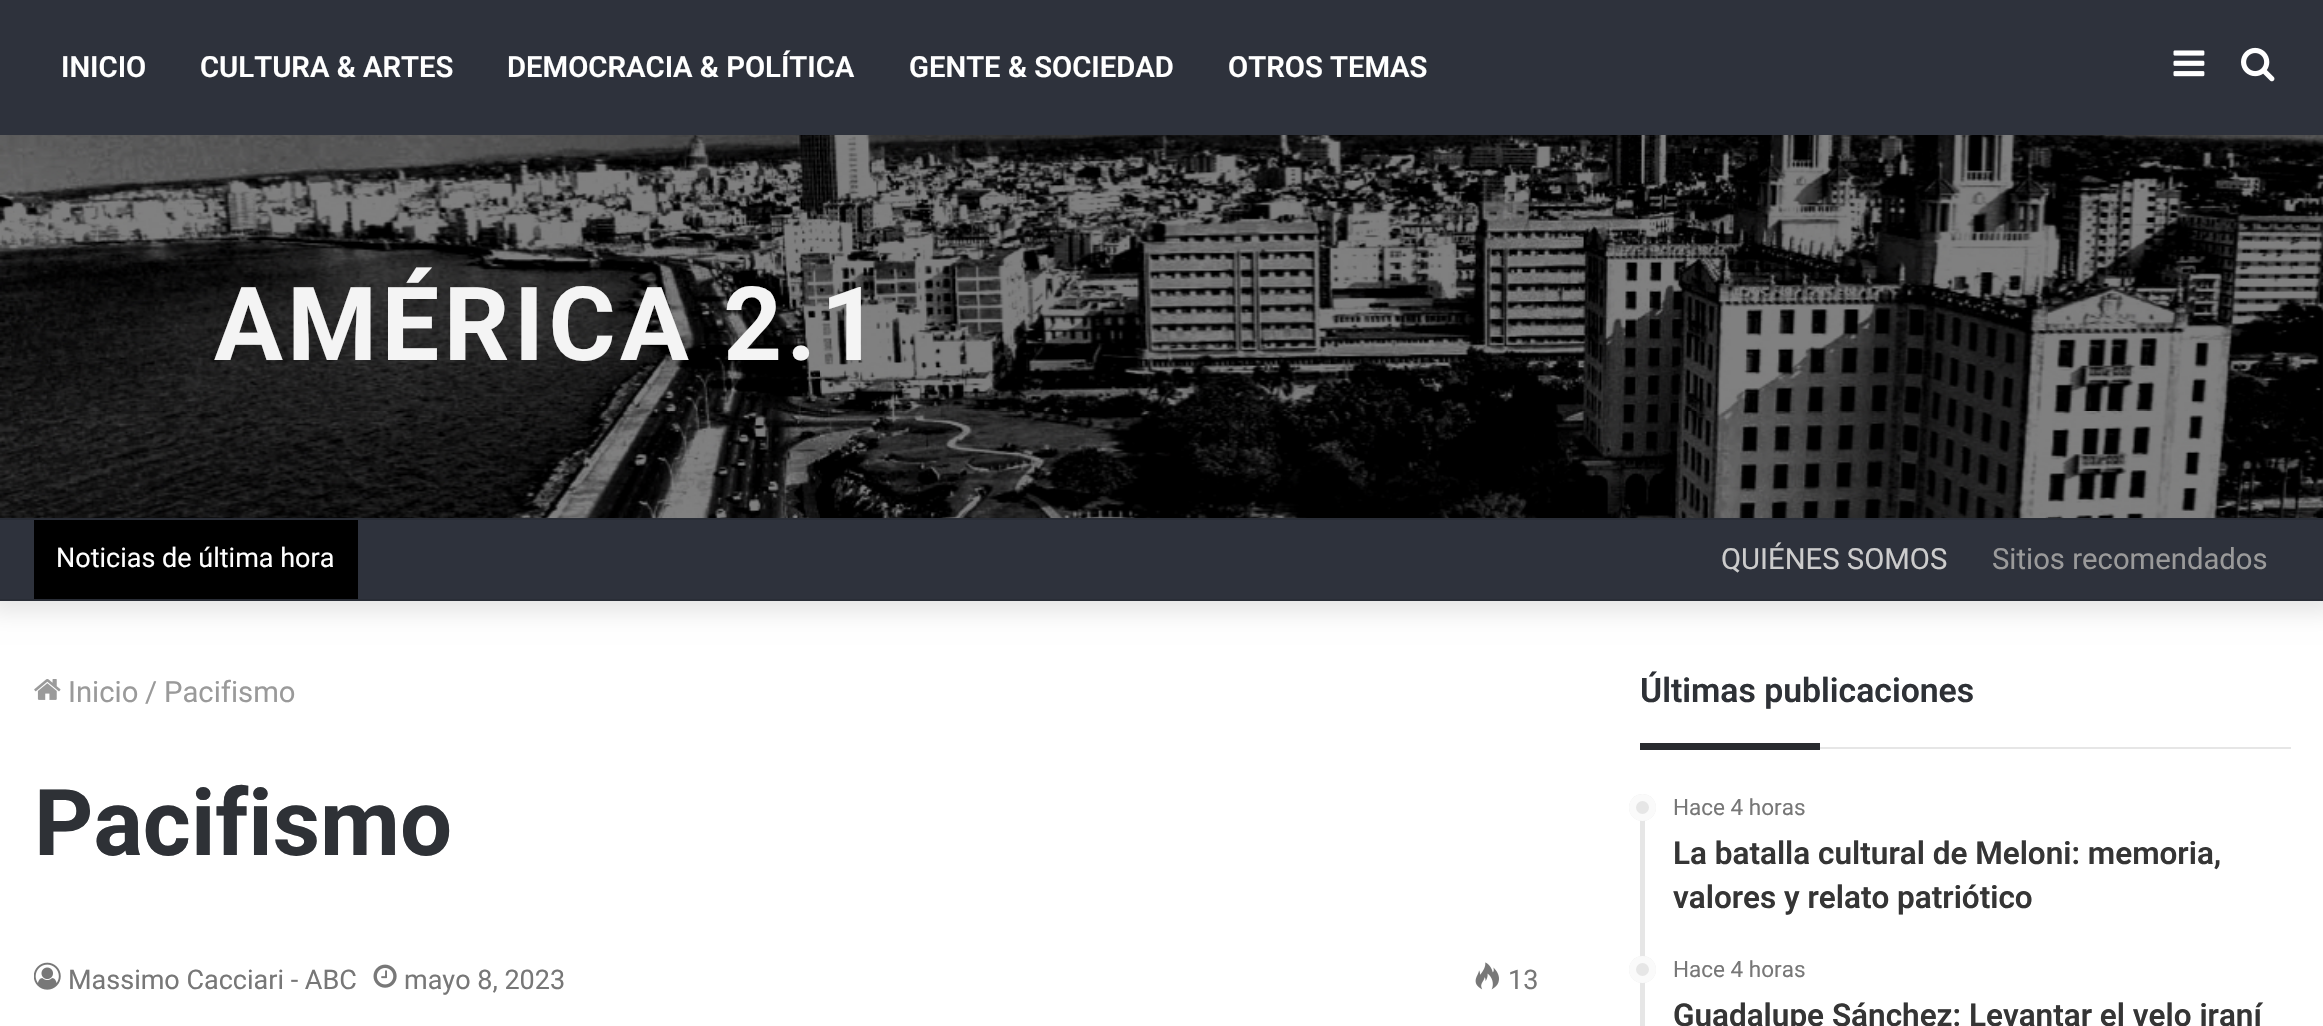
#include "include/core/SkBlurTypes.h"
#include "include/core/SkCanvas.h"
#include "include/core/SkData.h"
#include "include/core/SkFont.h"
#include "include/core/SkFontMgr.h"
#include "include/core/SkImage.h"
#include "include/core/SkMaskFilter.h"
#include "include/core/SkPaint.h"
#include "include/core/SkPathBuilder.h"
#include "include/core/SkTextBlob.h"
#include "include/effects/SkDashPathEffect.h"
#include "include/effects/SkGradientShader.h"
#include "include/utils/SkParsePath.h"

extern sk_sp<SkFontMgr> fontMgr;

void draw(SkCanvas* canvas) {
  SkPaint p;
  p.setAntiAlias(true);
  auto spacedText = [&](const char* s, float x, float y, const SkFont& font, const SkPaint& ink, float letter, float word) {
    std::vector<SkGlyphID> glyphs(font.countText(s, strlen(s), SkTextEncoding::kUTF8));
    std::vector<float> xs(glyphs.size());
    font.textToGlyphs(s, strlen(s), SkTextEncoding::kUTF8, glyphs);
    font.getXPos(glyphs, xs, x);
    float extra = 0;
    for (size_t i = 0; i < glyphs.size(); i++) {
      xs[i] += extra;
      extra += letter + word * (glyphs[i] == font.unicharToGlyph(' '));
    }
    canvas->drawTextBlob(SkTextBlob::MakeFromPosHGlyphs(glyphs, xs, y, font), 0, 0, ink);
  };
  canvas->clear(SK_ColorWHITE);
  p.setColor(SkColorSetARGB(26, 0, 0, 0));
  p.setMaskFilter(SkMaskFilter::MakeBlur(kNormal_SkBlurStyle, 11));
  canvas->drawRect(SkRect::MakeLTRB(-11, -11, 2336, 612), p);
  p.setMaskFilter(nullptr);
  p.setColor(SkColorSetRGB(46, 50, 60));
  canvas->drawRect(SkRect::MakeLTRB(0, 0, 2323, 599), p);
  canvas->drawImageRect(SkImages::DeferredFromEncodedData(SkData::MakeFromFileName("images/1.png")), SkRect::MakeLTRB(2173, 50, 2205, 77), SkSamplingOptions());
  canvas->drawImageRect(SkImages::DeferredFromEncodedData(SkData::MakeFromFileName("images/2.png")), SkRect::MakeLTRB(2241, 47, 2275, 82), SkSamplingOptions());
  canvas->drawImageRect(SkImages::DeferredFromEncodedData(SkData::MakeFromFileName("images/3.png")), SkRect::MakeLTRB(0, 135, 2323, 518), SkSamplingOptions());
  p.setColor(SkColorSetRGB(41, 45, 54));
  canvas->drawRect(SkRect::MakeLTRB(0, 518, 2323, 520), p);
  canvas->drawRect(SkRect::MakeLTRB(0, 599, 2323, 601), p);
  p.setColor(SK_ColorBLACK);
  canvas->drawRect(SkRect::MakeLTRB(34, 520, 358, 599), p);
  canvas->drawImageRect(SkImages::DeferredFromEncodedData(SkData::MakeFromFileName("images/4.png")), SkRect::MakeLTRB(34, 679, 61, 700), SkSamplingOptions());
  canvas->drawImageRect(SkImages::DeferredFromEncodedData(SkData::MakeFromFileName("images/5.png")), SkRect::MakeLTRB(34, 962, 61, 990), SkSamplingOptions());
  canvas->drawImageRect(SkImages::DeferredFromEncodedData(SkData::MakeFromFileName("images/6.png")), SkRect::MakeLTRB(373, 964, 397, 988), SkSamplingOptions());
  canvas->drawImageRect(SkImages::DeferredFromEncodedData(SkData::MakeFromFileName("images/7.png")), SkRect::MakeLTRB(1475, 962, 1499, 990), SkSamplingOptions());
  p.setColor(SkColorSetRGB(230, 230, 230));
  canvas->drawRect(SkRect::MakeLTRB(1820, 747, 2291, 749), p);
  p.setColor(SkColorSetRGB(41, 43, 47));
  canvas->drawRect(SkRect::MakeLTRB(1640, 743, 1820, 750), p);
  p.setColor(SkColorSetRGB(230, 230, 230));
  canvas->drawRect(SkRect::MakeLTRB(1640, 794, 1645, 1026), p);
  canvas->drawCircle(1642.5f, 807.5f, 13.5f, p);
  p.setStyle(SkPaint::kStroke_Style);
  p.setStrokeWidth(7);
  p.setColor(SkColorSetARGB(204, 255, 255, 255));
  canvas->drawCircle(1642.5f, 807.5f, 10, p);
  p.setStyle(SkPaint::kFill_Style);
  p.setColor(SkColorSetRGB(230, 230, 230));
  canvas->drawCircle(1642.5f, 969.5f, 13.5f, p);
  p.setStyle(SkPaint::kStroke_Style);
  p.setColor(SkColorSetARGB(204, 255, 255, 255));
  canvas->drawCircle(1642.5f, 969.5f, 10, p);
  SkFont font1(fontMgr->matchFamilyStyle("Roboto", SkFontStyle(600, SkFontStyle::kNormal_Width, SkFontStyle::kUpright_Slant)), 29.25f);
  font1.setSubpixel(true);
  p.setStyle(SkPaint::kFill_Style);
  p.setColor(SK_ColorWHITE);
  canvas->drawString("INICIO", 61, 77, font1, p);
  canvas->drawString("CULTURA & ARTES", 200, 77, font1, p);
  canvas->drawString("DEMOCRACIA & POLÍTICA", 507, 77, font1, p);
  canvas->drawString("GENTE & SOCIEDAD", 909, 77, font1, p);
  canvas->drawString("OTROS TEMAS", 1228, 77, font1, p);
  SkFont font2(fontMgr->matchFamilyStyle("Roboto", SkFontStyle::Bold()), 102.5f);
  font2.setSubpixel(true);
  p.setColor(SkColorSetRGB(244, 244, 244));
  spacedText("AMÉRICA 2.1", 214, 360, font2, p, 4.5f, 0);
  SkFont font3(fontMgr->matchFamilyStyle("Roboto", SkFontStyle::Normal()), 27);
  font3.setSubpixel(true);
  p.setColor(SK_ColorWHITE);
  canvas->drawString("Noticias de última hora", 56, 567, font3, p);
  SkFont font4(fontMgr->matchFamilyStyle("Roboto", SkFontStyle::Normal()), 29.25f);
  font4.setSubpixel(true);
  p.setColor(SkColorSetRGB(204, 204, 204));
  canvas->drawString("QUIÉNES SOMOS", 1721, 569, font4, p);
  p.setColor(SkColorSetRGB(154, 154, 154));
  canvas->drawString("Sitios recomendados", 1992, 569, font4, p);
  canvas->drawString("Inicio", 68, 702, font4, p);
  canvas->drawString("/", 145, 702, font4, p);
  canvas->drawString("Pacifismo", 164, 702, font4, p);
  SkFont font5(fontMgr->matchFamilyStyle("Roboto", SkFontStyle::Bold()), 92.25f);
  font5.setSubpixel(true);
  p.setColor(SkColorSetRGB(46, 49, 54));
  canvas->drawString("Pacifismo", 34, 855, font5, p);
  p.setColor(SkColorSetRGB(119, 119, 119));
  canvas->drawString("Massimo Cacciari - ABC", 68, 989, font3, p);
  canvas->drawString("mayo 8, 2023", 404, 989, font3, p);
  canvas->drawString("13", 1508, 989, font3, p);
  SkFont font6(fontMgr->matchFamilyStyle("Roboto", SkFontStyle(600, SkFontStyle::kNormal_Width, SkFontStyle::kUpright_Slant)), 33.75f);
  font6.setSubpixel(true);
  p.setColor(SkColorSetRGB(46, 49, 54));
  canvas->drawString("Últimas publicaciones", 1640, 702, font6, p);
  SkFont font7(fontMgr->matchFamilyStyle("Roboto", SkFontStyle::Normal()), 22.5f);
  font7.setSubpixel(true);
  p.setColor(SkColorSetRGB(119, 119, 119));
  canvas->drawString("Hace 4 horas", 1673, 815, font7, p);
  SkFont font8(fontMgr->matchFamilyStyle("Roboto", SkFontStyle(600, SkFontStyle::kNormal_Width, SkFontStyle::kUpright_Slant)), 31.5f);
  font8.setSubpixel(true);
  p.setColor(SkColorSetRGB(53, 53, 53));
  canvas->drawString("La batalla cultural de Meloni: memoria,", 1673, 864, font8, p);
  canvas->drawString("valores y relato patriótico", 1673, 908, font8, p);
  p.setColor(SkColorSetRGB(119, 119, 119));
  canvas->drawString("Hace 4 horas", 1673, 977, font7, p);
  p.setColor(SkColorSetRGB(53, 53, 53));
  canvas->drawString("Guadalupe Sánchez: Levantar el velo iraní", 1673, 1026, font8, p);
}
